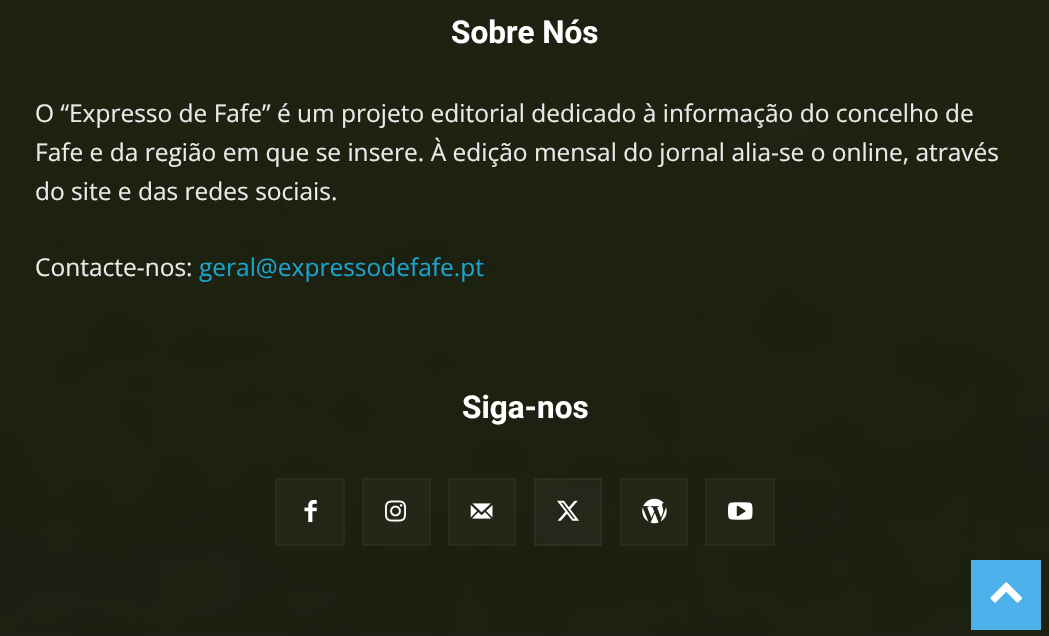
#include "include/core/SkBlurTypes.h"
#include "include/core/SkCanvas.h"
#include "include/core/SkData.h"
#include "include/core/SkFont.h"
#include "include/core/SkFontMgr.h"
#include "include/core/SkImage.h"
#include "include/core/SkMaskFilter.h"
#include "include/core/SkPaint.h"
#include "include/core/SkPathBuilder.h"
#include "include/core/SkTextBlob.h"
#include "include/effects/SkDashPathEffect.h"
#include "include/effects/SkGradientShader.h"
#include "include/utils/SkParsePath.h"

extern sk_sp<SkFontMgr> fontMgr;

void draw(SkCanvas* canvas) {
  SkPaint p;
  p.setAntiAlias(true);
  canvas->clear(SkColorSetRGB(17, 17, 17));
  canvas->drawImageRect(SkImages::DeferredFromEncodedData(SkData::MakeFromFileName("images/1.png")), SkRect::MakeLTRB(0, 0, 1049, 636), SkSamplingOptions());
  p.setColor(SkColorSetRGB(34, 38, 23));
  canvas->drawRect(SkRect::MakeLTRB(276, 479, 344, 545), p);
  p.setStyle(SkPaint::kStroke_Style);
  p.setStrokeWidth(2);
  p.setColor(SkColorSetRGB(41, 45, 30));
  canvas->drawRect(SkRect::MakeLTRB(276, 479, 344, 545), p);
  canvas->drawImageRect(SkImages::DeferredFromEncodedData(SkData::MakeFromFileName("images/2.png")), SkRect::MakeLTRB(304, 500, 317, 522), SkSamplingOptions());
  p.setStyle(SkPaint::kFill_Style);
  p.setColor(SkColorSetRGB(35, 39, 23));
  canvas->drawRect(SkRect::MakeLTRB(363, 479, 430, 545), p);
  p.setStyle(SkPaint::kStroke_Style);
  p.setColor(SkColorSetRGB(42, 45, 30));
  canvas->drawRect(SkRect::MakeLTRB(363, 479, 430, 545), p);
  canvas->drawImageRect(SkImages::DeferredFromEncodedData(SkData::MakeFromFileName("images/3.png")), SkRect::MakeLTRB(385, 500, 406, 522), SkSamplingOptions());
  p.setStyle(SkPaint::kFill_Style);
  p.setColor(SkColorSetRGB(35, 39, 23));
  canvas->drawRect(SkRect::MakeLTRB(449, 479, 515, 545), p);
  p.setStyle(SkPaint::kStroke_Style);
  p.setColor(SkColorSetRGB(42, 45, 30));
  canvas->drawRect(SkRect::MakeLTRB(449, 479, 515, 545), p);
  canvas->drawImageRect(SkImages::DeferredFromEncodedData(SkData::MakeFromFileName("images/4.png")), SkRect::MakeLTRB(470, 503, 493, 519), SkSamplingOptions());
  p.setStyle(SkPaint::kFill_Style);
  p.setColor(SkColorSetARGB(8, 255, 255, 255));
  canvas->drawRect(SkRect::MakeLTRB(534, 478, 602, 546), p);
  p.setStyle(SkPaint::kStroke_Style);
  canvas->drawRect(SkRect::MakeLTRB(535, 479, 601, 545), p);
  canvas->drawImageRect(SkImages::DeferredFromEncodedData(SkData::MakeFromFileName("images/5.png")), SkRect::MakeLTRB(557, 500, 579, 521), SkSamplingOptions());
  p.setStyle(SkPaint::kFill_Style);
  p.setColor(SkColorSetRGB(34, 38, 23));
  canvas->drawRect(SkRect::MakeLTRB(621, 479, 687, 545), p);
  p.setStyle(SkPaint::kStroke_Style);
  p.setColor(SkColorSetRGB(41, 45, 30));
  canvas->drawRect(SkRect::MakeLTRB(621, 479, 687, 545), p);
  canvas->drawImageRect(SkImages::DeferredFromEncodedData(SkData::MakeFromFileName("images/6.png")), SkRect::MakeLTRB(642, 498, 667, 524), SkSamplingOptions());
  p.setStyle(SkPaint::kFill_Style);
  p.setColor(SkColorSetRGB(34, 38, 23));
  canvas->drawRect(SkRect::MakeLTRB(706, 479, 774, 545), p);
  p.setStyle(SkPaint::kStroke_Style);
  p.setColor(SkColorSetRGB(41, 45, 30));
  canvas->drawRect(SkRect::MakeLTRB(706, 479, 774, 545), p);
  canvas->drawImageRect(SkImages::DeferredFromEncodedData(SkData::MakeFromFileName("images/7.png")), SkRect::MakeLTRB(728, 502, 753, 520), SkSamplingOptions());
  p.setStyle(SkPaint::kFill_Style);
  p.setColor(SkColorSetRGB(77, 178, 236));
  canvas->drawRect(SkRect::MakeLTRB(971, 560, 1041, 630), p);
  canvas->drawImageRect(SkImages::DeferredFromEncodedData(SkData::MakeFromFileName("images/8.png")), SkRect::MakeLTRB(990, 582, 1022, 603), SkSamplingOptions());
  SkFont font1(fontMgr->matchFamilyStyle("Roboto", SkFontStyle::Bold()), 31.5f);
  font1.setSubpixel(true);
  p.setColor(SK_ColorWHITE);
  canvas->drawString("Sobre Nós", 451, 43, font1, p);
  SkFont font2(fontMgr->matchFamilyStyle("Open Sans", SkFontStyle::Normal()), 24.5f);
  font2.setSubpixel(true);
  p.setColor(SkColorSetRGB(234, 234, 234));
  canvas->drawString("O “Expresso de Fafe” é um projeto editorial dedicado à informação do concelho de", 35, 122, font2, p);
  canvas->drawString("Fafe e da região em que se insere. À edição mensal do jornal alia-se o online, através", 35, 161, font2, p);
  canvas->drawString("do site e das redes sociais.", 35, 200, font2, p);
  canvas->drawString("Contacte-nos:", 35, 276, font2, p);
  p.setColor(SkColorSetRGB(26, 164, 206));
  canvas->drawString("geral@expressodefafe.pt", 199, 276, font2, p);
  p.setColor(SK_ColorWHITE);
  canvas->drawString("Siga-nos", 462, 418, font1, p);
}
